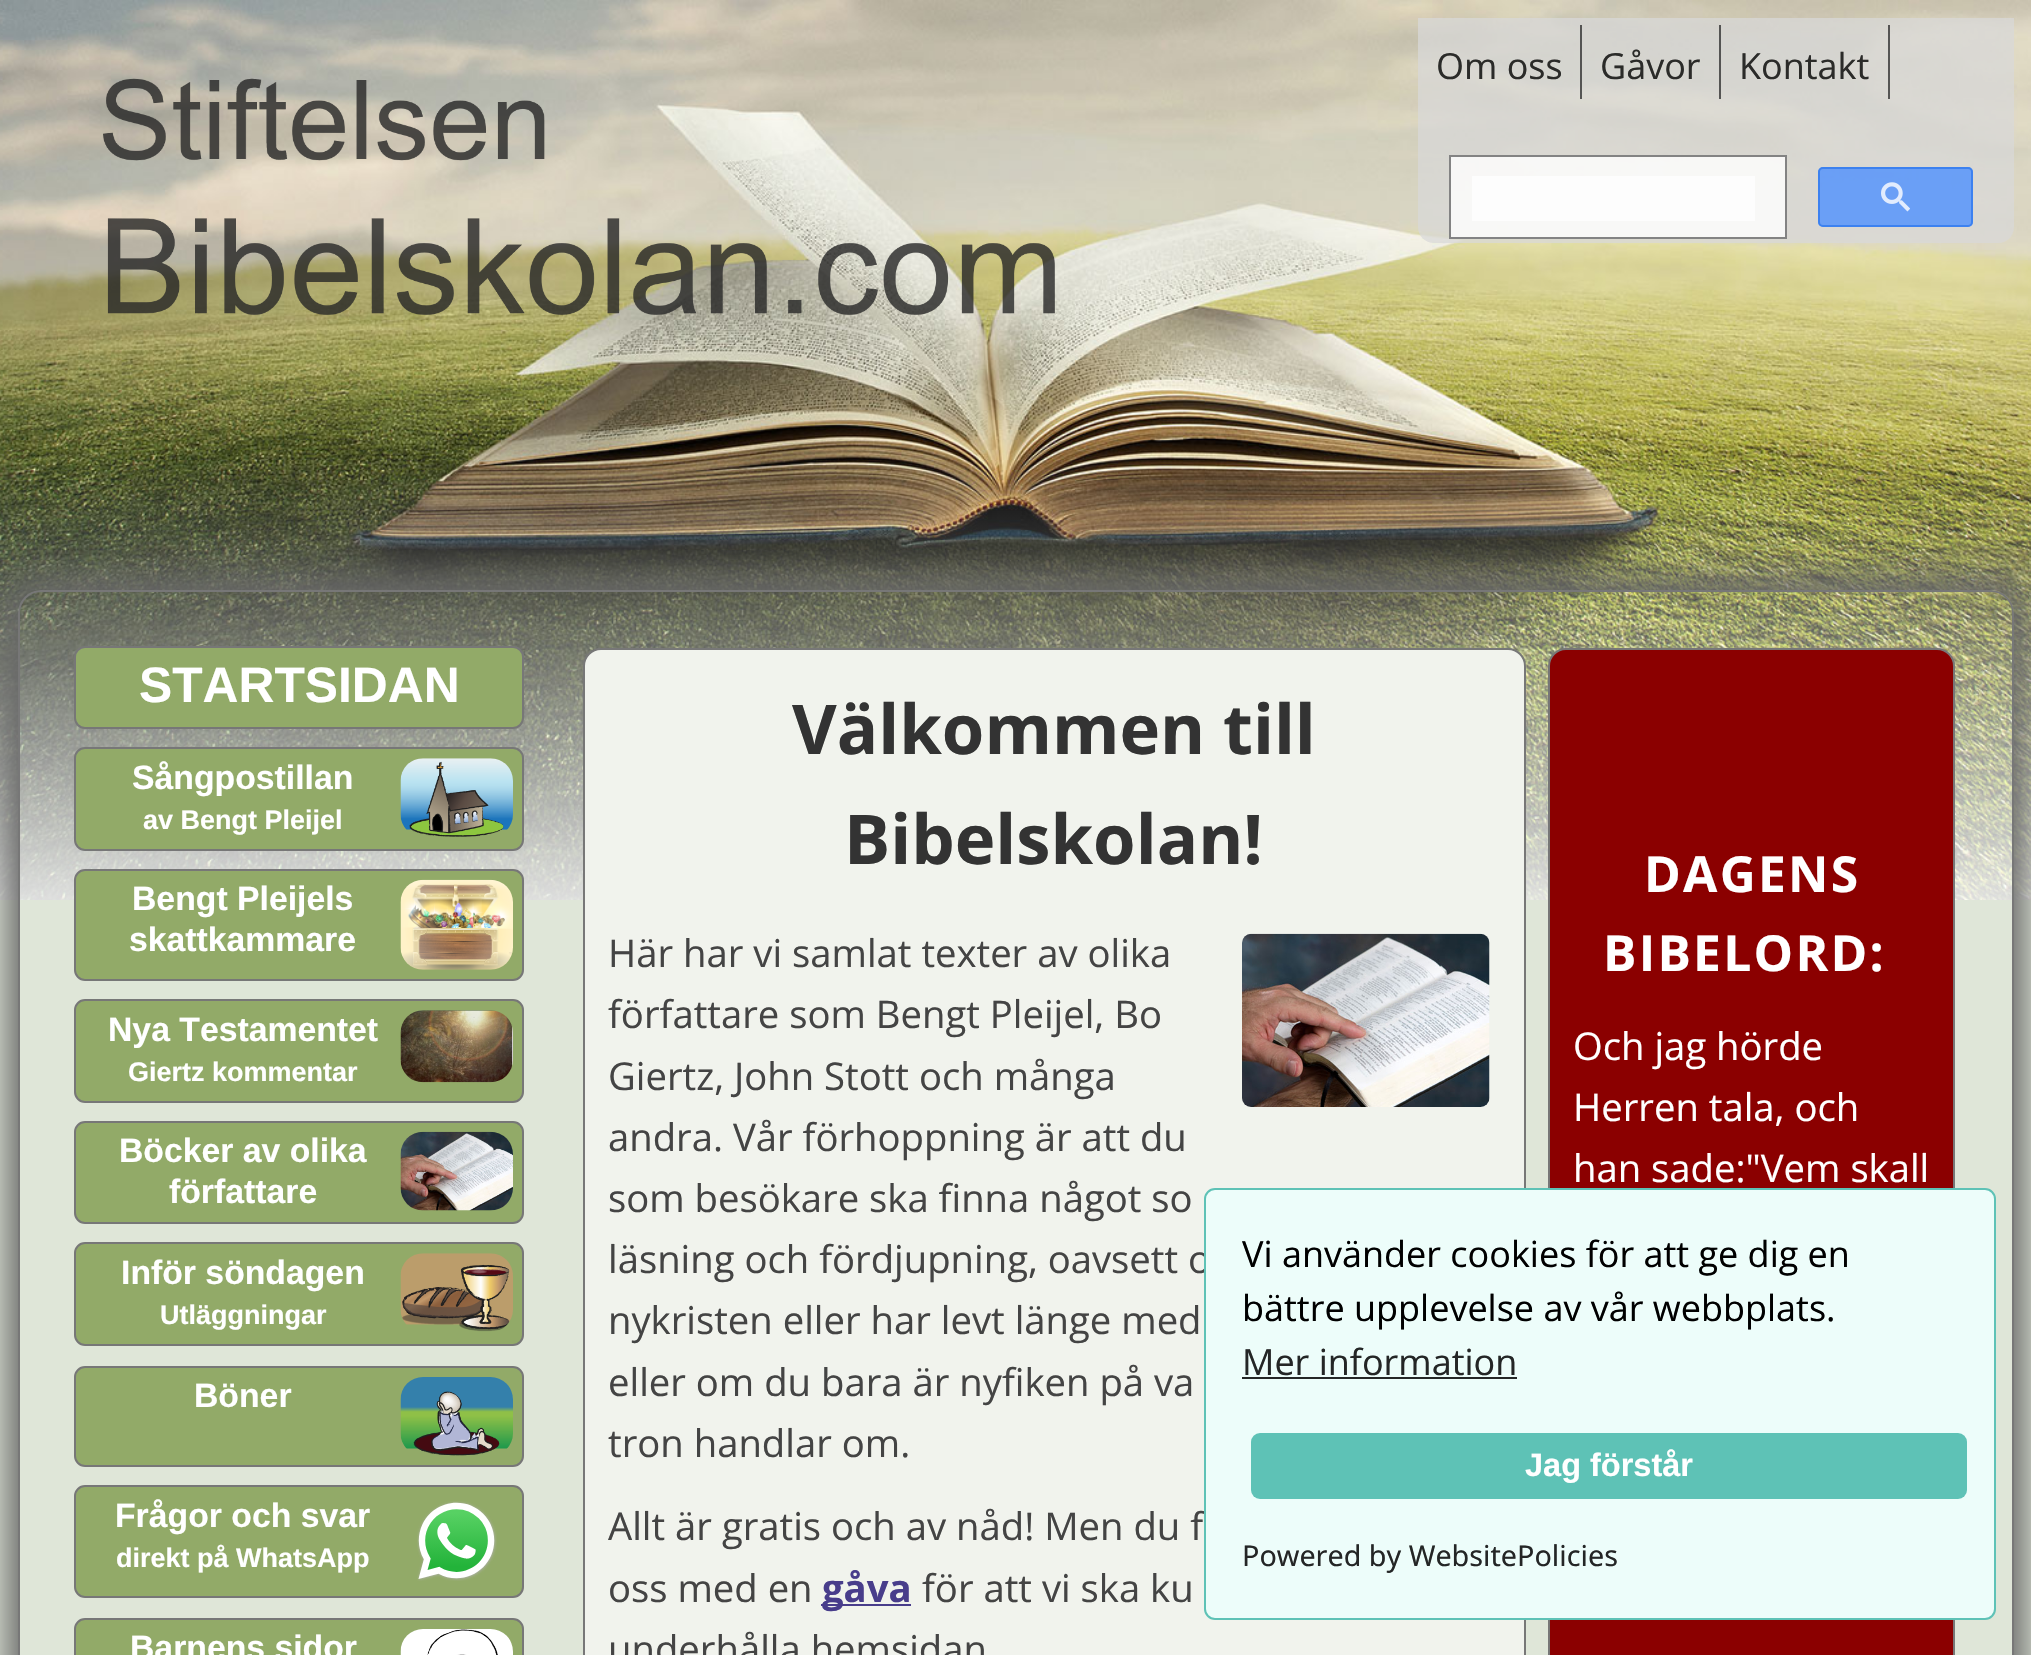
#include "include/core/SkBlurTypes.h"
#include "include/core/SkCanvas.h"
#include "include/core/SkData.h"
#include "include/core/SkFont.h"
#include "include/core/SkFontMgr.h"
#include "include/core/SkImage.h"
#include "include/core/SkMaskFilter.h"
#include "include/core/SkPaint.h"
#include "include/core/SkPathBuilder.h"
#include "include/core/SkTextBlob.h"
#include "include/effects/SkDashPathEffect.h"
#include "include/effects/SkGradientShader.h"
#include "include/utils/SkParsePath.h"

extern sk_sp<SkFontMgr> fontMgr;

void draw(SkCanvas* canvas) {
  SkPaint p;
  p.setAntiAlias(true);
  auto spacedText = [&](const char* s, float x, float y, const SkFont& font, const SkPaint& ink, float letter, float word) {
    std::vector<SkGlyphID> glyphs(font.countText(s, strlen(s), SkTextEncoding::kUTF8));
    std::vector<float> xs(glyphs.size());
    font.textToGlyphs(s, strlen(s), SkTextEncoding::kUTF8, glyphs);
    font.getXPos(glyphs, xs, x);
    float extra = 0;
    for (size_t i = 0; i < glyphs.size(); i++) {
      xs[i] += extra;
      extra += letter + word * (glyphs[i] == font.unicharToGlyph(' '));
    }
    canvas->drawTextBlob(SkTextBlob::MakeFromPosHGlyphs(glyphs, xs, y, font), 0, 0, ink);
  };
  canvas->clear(SkColorSetRGB(223, 230, 216));
  canvas->drawImageRect(SkImages::DeferredFromEncodedData(SkData::MakeFromFileName("images/1.png")), SkRect::MakeLTRB(0, 0, 2031, 900), SkSamplingOptions());
  p.setColor(SkColorSetARGB(184, 216, 216, 216));
  canvas->drawPath(SkPathBuilder().moveTo(1418, 18).lineTo(2014, 18).lineTo(2014, 227).cubicTo(2014, 236, 2007, 243, 1998, 243).lineTo(1434, 243).cubicTo(1425, 243, 1418, 236, 1418, 227).close().detach(), p);
  p.setColor(SkColorSetARGB(204, 51, 51, 51));
  canvas->drawRect(SkRect::MakeLTRB(1580, 25, 1582, 99), p);
  canvas->drawRect(SkRect::MakeLTRB(1719, 25, 1721, 99), p);
  canvas->drawRect(SkRect::MakeLTRB(1888, 25, 1890, 99), p);
  p.setColor(SkColorSetARGB(204, 255, 255, 255));
  canvas->drawRect(SkRect::MakeLTRB(1450, 156, 1786, 238), p);
  p.setStyle(SkPaint::kStroke_Style);
  p.setStrokeWidth(2);
  p.setColor(SkColorSetRGB(131, 131, 131));
  canvas->drawRect(SkRect::MakeLTRB(1450, 156, 1786, 238), p);
  p.setStyle(SkPaint::kFill_Style);
  p.setColor(SkColorSetRGB(253, 253, 253));
  canvas->drawRect(SkRect::MakeLTRB(1472, 176, 1755, 221), p);
  p.setColor(SkColorSetARGB(204, 77, 144, 254));
  canvas->drawRoundRect(SkRect::MakeLTRB(1818, 167, 1973, 227), 5, 5, p);
  p.setStyle(SkPaint::kStroke_Style);
  p.setColor(SkColorSetARGB(204, 48, 121, 237));
  canvas->drawRoundRect(SkRect::MakeLTRB(1819, 168, 1972, 226), 4, 4, p);
  canvas->drawImageRect(SkImages::DeferredFromEncodedData(SkData::MakeFromFileName("images/2.png")), SkRect::MakeLTRB(1881, 182, 1910, 212), SkSamplingOptions());
  canvas->drawImageRect(SkImages::DeferredFromEncodedData(SkData::MakeFromFileName("images/3.png")), SkRect::MakeLTRB(103, 78, 1055, 315), SkSamplingOptions());
  canvas->save();
  canvas->clipPath(SkPathBuilder(SkPathFillType::kEvenOdd).moveTo(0, 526).lineTo(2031, 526).lineTo(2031, 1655).lineTo(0, 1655).close().moveTo(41, 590).lineTo(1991, 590).cubicTo(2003.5f, 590, 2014, 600.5f, 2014, 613).lineTo(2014, 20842).lineTo(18, 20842).lineTo(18, 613).cubicTo(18, 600.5f, 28.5f, 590, 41, 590).close().detach(), true);
  p.setStyle(SkPaint::kFill_Style);
  p.setColor(SkColorSetRGB(102, 102, 102));
  p.setMaskFilter(SkMaskFilter::MakeBlur(kNormal_SkBlurStyle, 17));
  canvas->drawRoundRect(SkRect::MakeLTRB(7, 578, 2025, 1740), 34, 34, p);
  p.setMaskFilter(nullptr);
  canvas->restore();
  p.setStyle(SkPaint::kStroke_Style);
  p.setColor(SkColorSetRGB(119, 119, 119));
  canvas->drawPath(SkPathBuilder().moveTo(41, 591).lineTo(1991, 591).cubicTo(2003, 591, 2013, 601, 2013, 613).lineTo(2013, 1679).lineTo(19, 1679).lineTo(19, 613).cubicTo(19, 601, 29, 591, 41, 591).close().detach(), p);
  p.setStyle(SkPaint::kFill_Style);
  p.setColor(SkColorSetRGB(146, 170, 104));
  canvas->drawRoundRect(SkRect::MakeLTRB(75, 647, 523, 728), 10, 10, p);
  p.setStyle(SkPaint::kStroke_Style);
  p.setColor(SkColorSetRGB(119, 119, 119));
  canvas->drawRoundRect(SkRect::MakeLTRB(75, 647, 523, 728), 10, 10, p);
  p.setStyle(SkPaint::kFill_Style);
  p.setColor(SkColorSetRGB(146, 170, 104));
  canvas->drawRoundRect(SkRect::MakeLTRB(75, 748, 523, 850), 10, 10, p);
  p.setStyle(SkPaint::kStroke_Style);
  p.setColor(SkColorSetRGB(119, 119, 119));
  canvas->drawRoundRect(SkRect::MakeLTRB(75, 748, 523, 850), 10, 10, p);
  canvas->drawImageRect(SkImages::DeferredFromEncodedData(SkData::MakeFromFileName("images/4.png")), SkRect::MakeLTRB(400, 758, 513, 837), SkSamplingOptions());
  p.setStyle(SkPaint::kFill_Style);
  p.setColor(SkColorSetRGB(146, 170, 104));
  canvas->drawRoundRect(SkRect::MakeLTRB(75, 870, 523, 980), 10, 10, p);
  p.setStyle(SkPaint::kStroke_Style);
  p.setColor(SkColorSetRGB(119, 119, 119));
  canvas->drawRoundRect(SkRect::MakeLTRB(75, 870, 523, 980), 10, 10, p);
  canvas->drawImageRect(SkImages::DeferredFromEncodedData(SkData::MakeFromFileName("images/5.png")), SkRect::MakeLTRB(400, 879, 513, 970), SkSamplingOptions());
  p.setStyle(SkPaint::kFill_Style);
  p.setColor(SkColorSetRGB(146, 170, 104));
  canvas->drawRoundRect(SkRect::MakeLTRB(75, 1000, 523, 1102), 10, 10, p);
  p.setStyle(SkPaint::kStroke_Style);
  p.setColor(SkColorSetRGB(119, 119, 119));
  canvas->drawRoundRect(SkRect::MakeLTRB(75, 1000, 523, 1102), 10, 10, p);
  canvas->drawImageRect(SkImages::DeferredFromEncodedData(SkData::MakeFromFileName("images/6.png")), SkRect::MakeLTRB(400, 1010, 513, 1083), SkSamplingOptions());
  p.setStyle(SkPaint::kFill_Style);
  p.setColor(SkColorSetRGB(146, 170, 104));
  canvas->drawRoundRect(SkRect::MakeLTRB(75, 1122, 523, 1223), 10, 10, p);
  p.setStyle(SkPaint::kStroke_Style);
  p.setColor(SkColorSetRGB(119, 119, 119));
  canvas->drawRoundRect(SkRect::MakeLTRB(75, 1122, 523, 1223), 10, 10, p);
  canvas->drawImageRect(SkImages::DeferredFromEncodedData(SkData::MakeFromFileName("images/7.png")), SkRect::MakeLTRB(400, 1131, 513, 1211), SkSamplingOptions());
  p.setStyle(SkPaint::kFill_Style);
  p.setColor(SkColorSetRGB(146, 170, 104));
  canvas->drawRoundRect(SkRect::MakeLTRB(75, 1243, 523, 1345), 10, 10, p);
  p.setStyle(SkPaint::kStroke_Style);
  p.setColor(SkColorSetRGB(119, 119, 119));
  canvas->drawRoundRect(SkRect::MakeLTRB(75, 1243, 523, 1345), 10, 10, p);
  canvas->drawImageRect(SkImages::DeferredFromEncodedData(SkData::MakeFromFileName("images/8.png")), SkRect::MakeLTRB(400, 1253, 513, 1332), SkSamplingOptions());
  p.setStyle(SkPaint::kFill_Style);
  p.setColor(SkColorSetRGB(146, 170, 104));
  canvas->drawRoundRect(SkRect::MakeLTRB(75, 1367, 523, 1466), 10, 10, p);
  p.setStyle(SkPaint::kStroke_Style);
  p.setColor(SkColorSetRGB(119, 119, 119));
  canvas->drawRoundRect(SkRect::MakeLTRB(75, 1367, 523, 1466), 10, 10, p);
  canvas->drawImageRect(SkImages::DeferredFromEncodedData(SkData::MakeFromFileName("images/9.png")), SkRect::MakeLTRB(400, 1377, 513, 1456), SkSamplingOptions());
  p.setStyle(SkPaint::kFill_Style);
  p.setColor(SkColorSetRGB(146, 170, 104));
  canvas->drawRoundRect(SkRect::MakeLTRB(75, 1486, 523, 1597), 10, 10, p);
  p.setStyle(SkPaint::kStroke_Style);
  p.setColor(SkColorSetRGB(119, 119, 119));
  canvas->drawRoundRect(SkRect::MakeLTRB(75, 1486, 523, 1597), 10, 10, p);
  canvas->drawImageRect(SkImages::DeferredFromEncodedData(SkData::MakeFromFileName("images/10.png")), SkRect::MakeLTRB(417, 1501, 497, 1581), SkSamplingOptions());
  p.setStyle(SkPaint::kFill_Style);
  p.setColor(SkColorSetRGB(146, 170, 104));
  canvas->drawRoundRect(SkRect::MakeLTRB(75, 1619, 523, 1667), 10, 10, p);
  p.setStyle(SkPaint::kStroke_Style);
  p.setColor(SkColorSetRGB(119, 119, 119));
  canvas->drawRoundRect(SkRect::MakeLTRB(75, 1619, 523, 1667), 10, 10, p);
  canvas->drawImageRect(SkImages::DeferredFromEncodedData(SkData::MakeFromFileName("images/11.png")), SkRect::MakeLTRB(400, 1629, 513, 1655), SkSamplingOptions());
  p.setStyle(SkPaint::kFill_Style);
  p.setColor(SkColorSetRGB(241, 243, 237));
  canvas->drawRoundRect(SkRect::MakeLTRB(584, 649, 1525, 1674), 17, 17, p);
  p.setStyle(SkPaint::kStroke_Style);
  p.setColor(SkColorSetRGB(119, 119, 119));
  canvas->drawRoundRect(SkRect::MakeLTRB(584, 649, 1525, 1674), 17, 17, p);
  canvas->drawImageRect(SkImages::DeferredFromEncodedData(SkData::MakeFromFileName("images/12.png")), SkRect::MakeLTRB(1242, 933, 1490, 1107), SkSamplingOptions());
  p.setStyle(SkPaint::kFill_Style);
  p.setColor(SkColorSetRGB(72, 61, 139));
  canvas->drawRect(SkRect::MakeLTRB(821, 1604, 911, 1606), p);
  p.setColor(SkColorSetRGB(139, 0, 0));
  canvas->drawRoundRect(SkRect::MakeLTRB(1549, 649, 1954, 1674), 17, 17, p);
  p.setStyle(SkPaint::kStroke_Style);
  p.setColor(SkColorSetRGB(119, 119, 119));
  canvas->drawRoundRect(SkRect::MakeLTRB(1549, 649, 1954, 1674), 17, 17, p);
  SkFont font1(fontMgr->matchFamilyStyle("Open Sans", SkFontStyle::Normal()), 36);
  font1.setSubpixel(true);
  p.setStyle(SkPaint::kFill_Style);
  p.setColor(SkColorSetRGB(43, 43, 41));
  canvas->drawString("Om oss", 1436, 79, font1, p);
  canvas->drawString("Gåvor", 1600, 79, font1, p);
  canvas->drawString("Kontakt", 1739, 79, font1, p);
  SkFont font2(fontMgr->matchFamilyStyle("Liberation Sans", SkFontStyle::Bold()), 49.75f);
  font2.setSubpixel(true);
  p.setColor(SK_ColorWHITE);
  canvas->drawString("STARTSIDAN", 139, 702, font2, p);
  SkFont font3(fontMgr->matchFamilyStyle("Liberation Sans", SkFontStyle::Bold()), 33.75f);
  font3.setSubpixel(true);
  canvas->drawString("Sångpostillan", 132, 789, font3, p);
  SkFont font4(fontMgr->matchFamilyStyle("Liberation Sans", SkFontStyle::Bold()), 27);
  font4.setSubpixel(true);
  canvas->drawString("av Bengt Pleijel", 143, 829, font4, p);
  canvas->drawString("Bengt Pleijels", 132, 910, font3, p);
  canvas->drawString("skattkammare", 129, 951, font3, p);
  canvas->drawString("Nya Testamentet", 108, 1041, font3, p);
  canvas->drawString("Giertz kommentar", 128, 1081, font4, p);
  canvas->drawString("Böcker av olika", 119, 1162, font3, p);
  canvas->drawString("författare", 169, 1203, font3, p);
  canvas->drawString("Inför söndagen", 121, 1284, font3, p);
  canvas->drawString("Utläggningar", 160, 1324, font4, p);
  canvas->drawString("Böner", 194, 1407, font3, p);
  canvas->drawString("Frågor och svar", 115, 1527, font3, p);
  canvas->drawString("direkt på WhatsApp", 116, 1567, font4, p);
  canvas->drawString("Barnens sidor", 130, 1659, font3, p);
  SkFont font5(fontMgr->matchFamilyStyle("Open Sans", SkFontStyle::Bold()), 68.75f);
  font5.setSubpixel(true);
  p.setColor(SkColorSetRGB(51, 51, 51));
  canvas->drawString("Välkommen till", 792, 754, font5, p);
  canvas->drawString("Bibelskolan!", 844, 864, font5, p);
  SkFont font6(fontMgr->matchFamilyStyle("Open Sans", SkFontStyle::Normal()), 38.25f);
  font6.setSubpixel(true);
  p.setColor(SkColorSetRGB(68, 68, 68));
  canvas->drawString("Här har vi samlat texter av olika", 608, 967, font6, p);
  canvas->drawString("författare som Bengt Pleijel, Bo", 608, 1028, font6, p);
  canvas->drawString("Giertz, John Stott och många", 608, 1090, font6, p);
  canvas->drawString("andra. Vår förhoppning är att du", 608, 1151, font6, p);
  canvas->drawString("som besökare ska finna något so", 608, 1212, font6, p);
  canvas->drawString("läsning och fördjupning, oavsett o", 608, 1273, font6, p);
  canvas->drawString("nykristen eller har levt länge med", 608, 1334, font6, p);
  canvas->drawString("eller om du bara är nyfiken på va", 608, 1396, font6, p);
  canvas->drawString("tron handlar om.", 608, 1457, font6, p);
  canvas->drawString("Allt är gratis och av nåd! Men du f", 608, 1540, font6, p);
  canvas->drawString("oss med en", 608, 1602, font6, p);
  SkFont font7(fontMgr->matchFamilyStyle("Open Sans", SkFontStyle::Bold()), 38.25f);
  font7.setSubpixel(true);
  p.setColor(SkColorSetRGB(72, 61, 139));
  canvas->drawString("gåva", 822, 1602, font7, p);
  p.setColor(SkColorSetRGB(68, 68, 68));
  canvas->drawString("för att vi ska ku", 922, 1602, font6, p);
  canvas->drawString("underhålla hemsidan", 608, 1663, font6, p);
  SkFont font8(fontMgr->matchFamilyStyle("Open Sans", SkFontStyle::Bold()), 49.75f);
  font8.setSubpixel(true);
  p.setColor(SK_ColorWHITE);
  spacedText("DAGENS", 1644, 892, font8, p, 2.25f, 0);
  spacedText("BIBELORD:", 1603, 971, font8, p, 2.25f, 0);
  canvas->drawString("Och jag hörde", 1573, 1060, font6, p);
  canvas->drawString("Herren tala, och", 1573, 1121, font6, p);
  canvas->drawString("han sade:\"Vem skall", 1573, 1182, font6, p);
  p.setColor(SkColorSetRGB(237, 253, 250));
  canvas->drawRoundRect(SkRect::MakeLTRB(1205, 1189, 1995, 1619), 10, 10, p);
  p.setStyle(SkPaint::kStroke_Style);
  p.setColor(SkColorSetRGB(94, 194, 182));
  canvas->drawRoundRect(SkRect::MakeLTRB(1205, 1189, 1995, 1619), 10, 10, p);
  p.setStyle(SkPaint::kFill_Style);
  p.setColor(SK_ColorBLACK);
  canvas->drawString("Vi använder cookies för att ge dig en", 1242, 1267, font1, p);
  canvas->drawString("bättre upplevelse av vår webbplats.", 1242, 1321, font1, p);
  p.setColor(SkColorSetRGB(36, 38, 38));
  canvas->drawString("Mer information", 1242, 1375, font1, p);
  canvas->drawRect(SkRect::MakeLTRB(1242, 1377, 1517, 1379), p);
  p.setColor(SkColorSetRGB(94, 194, 182));
  canvas->drawRoundRect(SkRect::MakeLTRB(1251, 1433, 1967, 1499), 9, 9, p);
  SkFont font9(fontMgr->matchFamilyStyle("Liberation Sans", SkFontStyle::Bold()), 32.5f);
  font9.setSubpixel(true);
  p.setColor(SK_ColorWHITE);
  canvas->drawString("Jag förstår", 1525, 1476, font9, p);
  SkFont font10(fontMgr->matchFamilyStyle("Noto Sans", SkFontStyle::Normal()), 28.75f);
  font10.setSubpixel(true);
  p.setColor(SkColorSetRGB(36, 38, 38));
  canvas->drawString("Powered by WebsitePolicies", 1242, 1566, font10, p);
}
